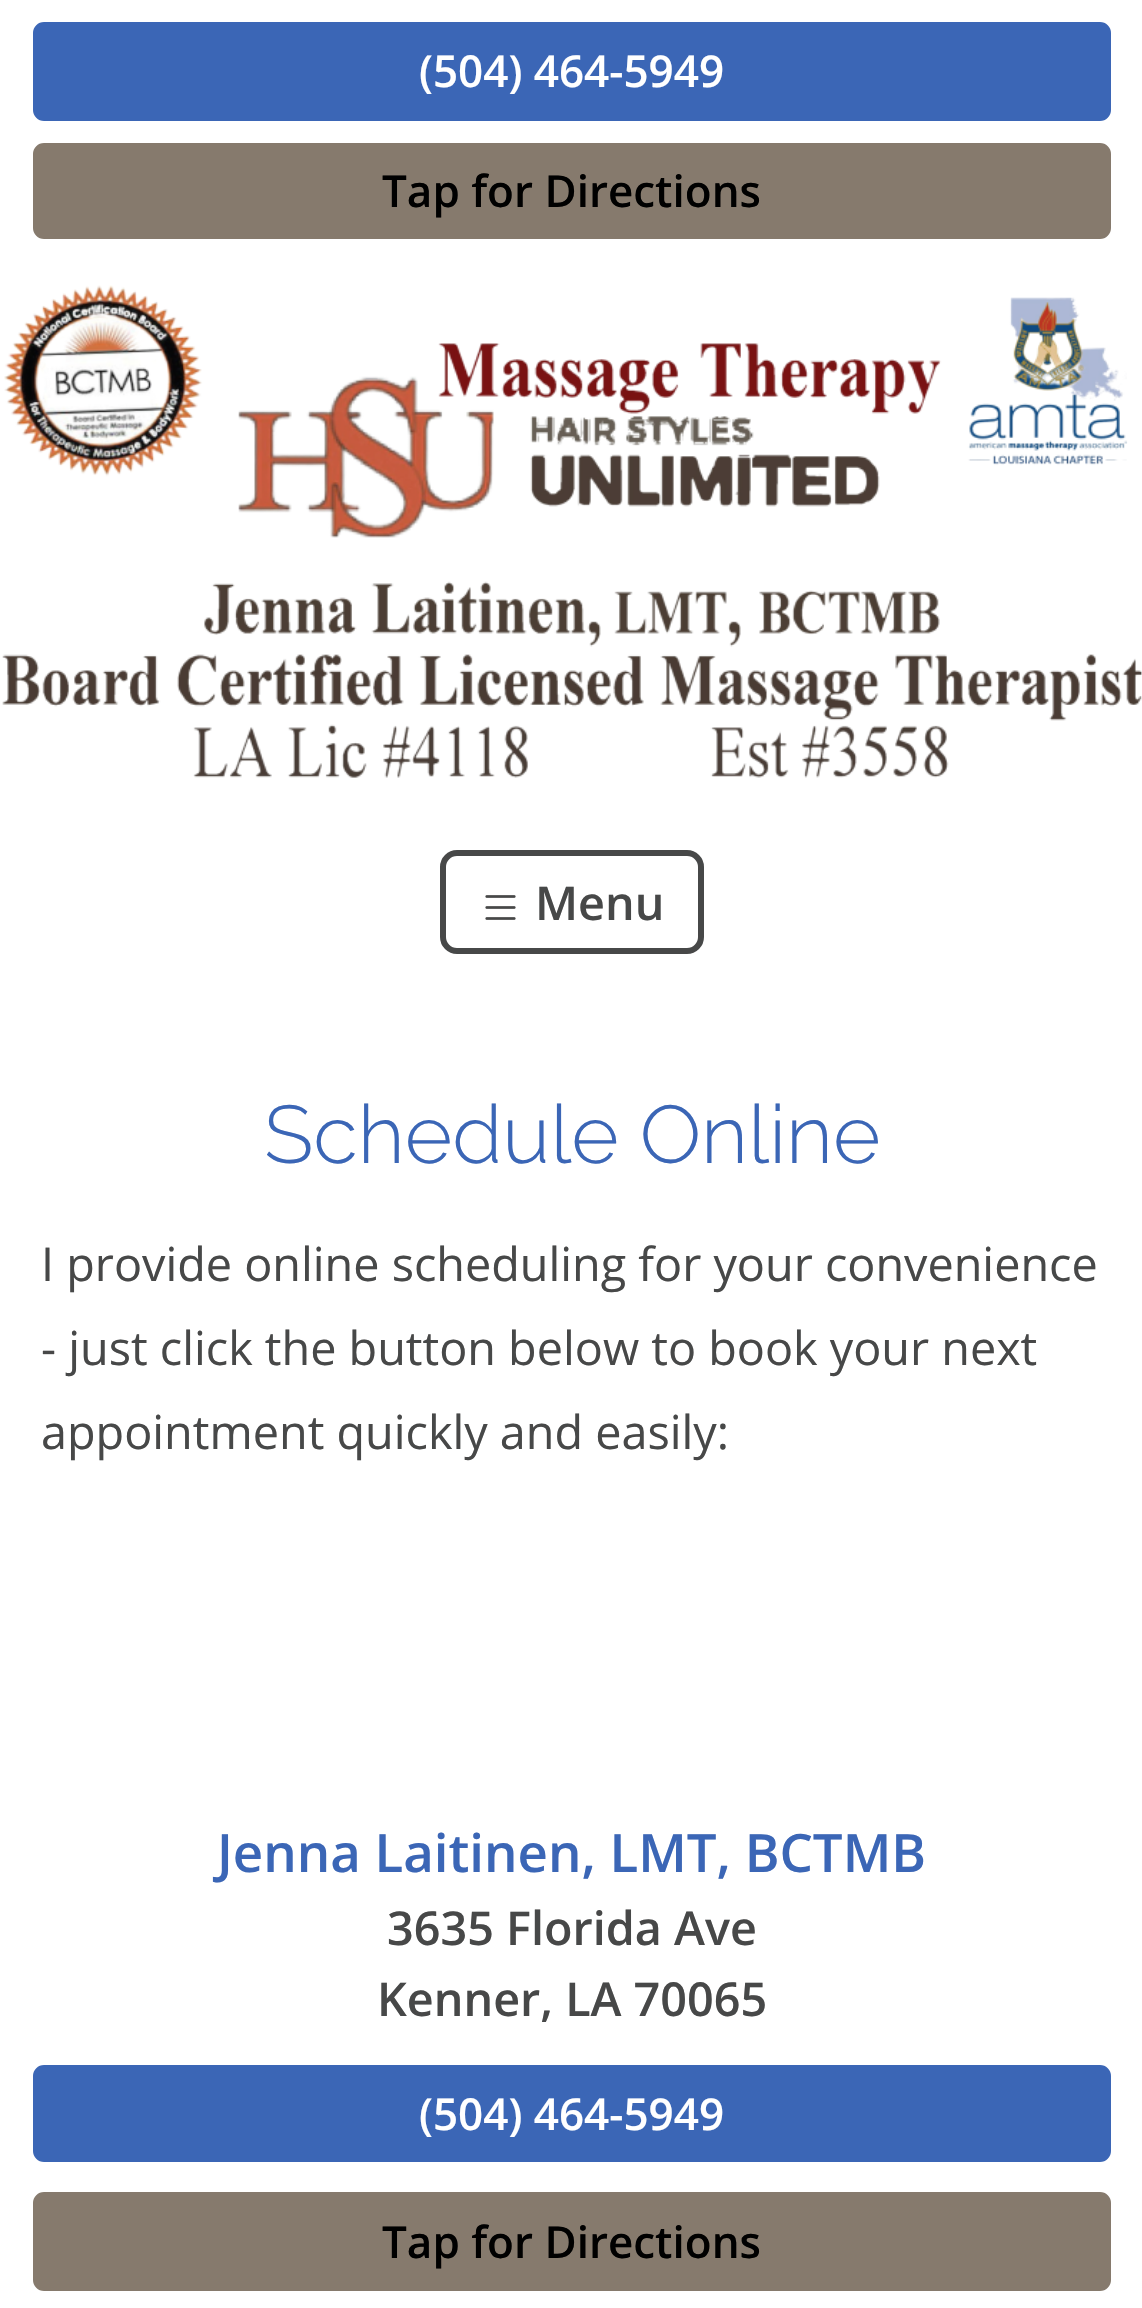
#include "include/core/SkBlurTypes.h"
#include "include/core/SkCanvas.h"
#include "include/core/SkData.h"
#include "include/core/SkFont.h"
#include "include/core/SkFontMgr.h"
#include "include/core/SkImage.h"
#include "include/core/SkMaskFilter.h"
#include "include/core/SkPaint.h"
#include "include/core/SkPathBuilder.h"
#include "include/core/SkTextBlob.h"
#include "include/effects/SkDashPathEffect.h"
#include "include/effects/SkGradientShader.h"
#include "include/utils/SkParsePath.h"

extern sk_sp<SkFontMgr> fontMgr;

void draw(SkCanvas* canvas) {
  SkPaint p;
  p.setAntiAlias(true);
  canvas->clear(SK_ColorWHITE);
  p.setColor(SkColorSetRGB(59, 102, 182));
  canvas->drawRoundRect(SkRect::MakeLTRB(34.5f, 23.5f, 1109.5f, 119.5f), 9.5f, 9.5f, p);
  p.setStyle(SkPaint::kStroke_Style);
  p.setStrokeWidth(3);
  canvas->drawRoundRect(SkRect::MakeLTRB(34.5f, 23.5f, 1109.5f, 119.5f), 9.5f, 9.5f, p);
  p.setStyle(SkPaint::kFill_Style);
  p.setColor(SkColorSetRGB(134, 122, 109));
  canvas->drawRoundRect(SkRect::MakeLTRB(34.5f, 144.5f, 1109.5f, 237.5f), 9.5f, 9.5f, p);
  p.setStyle(SkPaint::kStroke_Style);
  canvas->drawRoundRect(SkRect::MakeLTRB(34.5f, 144.5f, 1109.5f, 237.5f), 9.5f, 9.5f, p);
  canvas->drawImageRect(SkImages::DeferredFromEncodedData(SkData::MakeFromFileName("images/1.png")), SkRect::MakeLTRB(2, 285, 1142, 778), SkSamplingOptions());
  p.setStrokeWidth(6);
  p.setColor(SkColorSetRGB(71, 72, 72));
  canvas->drawRoundRect(SkRect::MakeLTRB(443, 853, 701, 951), 14, 14, p);
  canvas->drawImageRect(SkImages::DeferredFromEncodedData(SkData::MakeFromFileName("images/2.png")), SkRect::MakeLTRB(485, 895, 516, 920), SkSamplingOptions());
  p.setStyle(SkPaint::kFill_Style);
  p.setColor(SkColorSetRGB(59, 102, 182));
  canvas->drawRoundRect(SkRect::MakeLTRB(34.5f, 2066.5f, 1109.5f, 2160.5f), 9.5f, 9.5f, p);
  p.setStyle(SkPaint::kStroke_Style);
  p.setStrokeWidth(3);
  canvas->drawRoundRect(SkRect::MakeLTRB(34.5f, 2066.5f, 1109.5f, 2160.5f), 9.5f, 9.5f, p);
  p.setStyle(SkPaint::kFill_Style);
  p.setColor(SkColorSetRGB(134, 122, 109));
  canvas->drawRoundRect(SkRect::MakeLTRB(34.5f, 2193.5f, 1109.5f, 2289.5f), 9.5f, 9.5f, p);
  p.setStyle(SkPaint::kStroke_Style);
  canvas->drawRoundRect(SkRect::MakeLTRB(34.5f, 2193.5f, 1109.5f, 2289.5f), 9.5f, 9.5f, p);
  SkFont font1(fontMgr->matchFamilyStyle("Open Sans", SkFontStyle(600, SkFontStyle::kNormal_Width, SkFontStyle::kUpright_Slant)), 44);
  font1.setSubpixel(true);
  p.setStyle(SkPaint::kFill_Style);
  p.setColor(SK_ColorWHITE);
  canvas->drawString("(504) 464-5949", 419, 87, font1, p);
  p.setColor(SK_ColorBLACK);
  canvas->drawString("Tap for Directions", 382, 207, font1, p);
  SkFont font2(fontMgr->matchFamilyStyle("Open Sans", SkFontStyle(600, SkFontStyle::kNormal_Width, SkFontStyle::kUpright_Slant)), 46.75f);
  font2.setSubpixel(true);
  p.setColor(SkColorSetRGB(71, 72, 72));
  canvas->drawString("Menu", 535, 920, font2, p);
  SkFont font3(fontMgr->matchFamilyStyle("Raleway", SkFontStyle(300, SkFontStyle::kNormal_Width, SkFontStyle::kUpright_Slant)), 81.5f);
  font3.setSubpixel(true);
  p.setColor(SkColorSetRGB(59, 102, 182));
  canvas->drawString("Schedule Online", 264, 1163, font3, p);
  SkFont font4(fontMgr->matchFamilyStyle("Open Sans", SkFontStyle::Normal()), 46.75f);
  font4.setSubpixel(true);
  p.setColor(SkColorSetRGB(71, 72, 72));
  canvas->drawString("I provide online scheduling for your convenience", 41, 1281, font4, p);
  canvas->drawString("- just click the button below to book your next", 41, 1365, font4, p);
  canvas->drawString("appointment quickly and easily:", 41, 1449, font4, p);
  SkFont font5(fontMgr->matchFamilyStyle("Open Sans", SkFontStyle(600, SkFontStyle::kNormal_Width, SkFontStyle::kUpright_Slant)), 52.75f);
  font5.setSubpixel(true);
  p.setColor(SkColorSetRGB(59, 102, 182));
  canvas->drawString("Jenna Laitinen, LMT, BCTMB", 217, 1872, font5, p);
  p.setColor(SkColorSetRGB(71, 72, 72));
  canvas->drawString("3635 Florida Ave", 387, 1945, font2, p);
  canvas->drawString("Kenner, LA 70065", 377, 2016, font2, p);
  p.setColor(SK_ColorWHITE);
  canvas->drawString("(504) 464-5949", 419, 2130, font1, p);
  p.setColor(SK_ColorBLACK);
  canvas->drawString("Tap for Directions", 382, 2258, font1, p);
}
